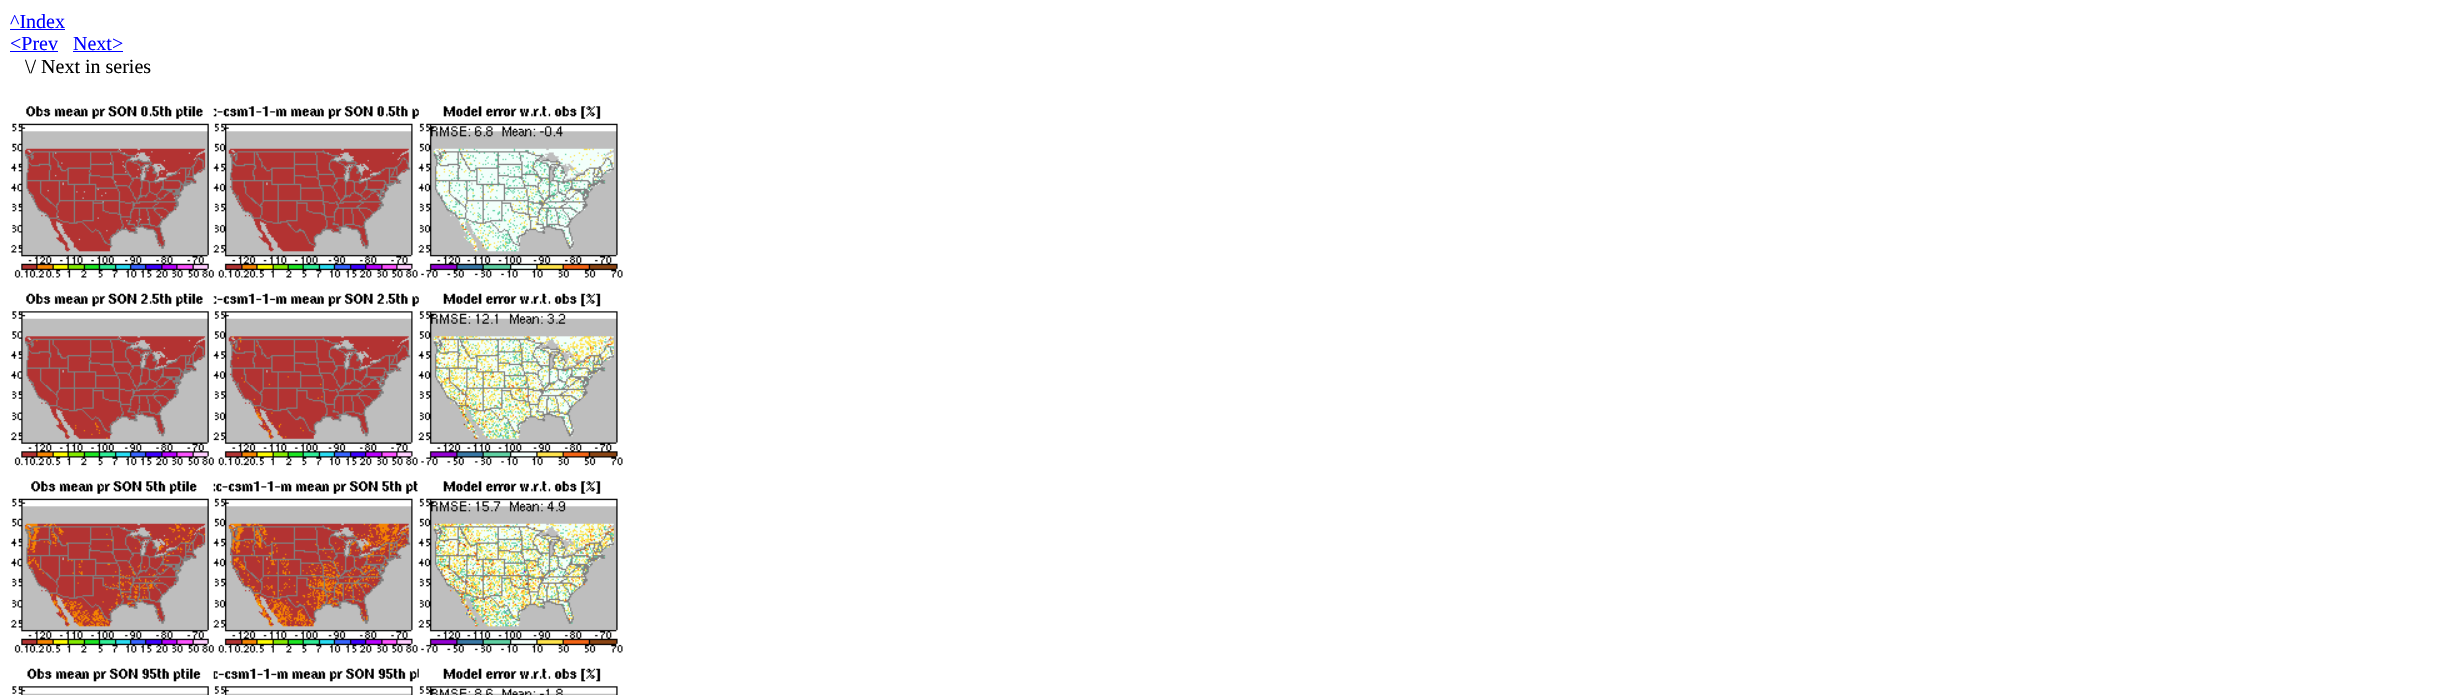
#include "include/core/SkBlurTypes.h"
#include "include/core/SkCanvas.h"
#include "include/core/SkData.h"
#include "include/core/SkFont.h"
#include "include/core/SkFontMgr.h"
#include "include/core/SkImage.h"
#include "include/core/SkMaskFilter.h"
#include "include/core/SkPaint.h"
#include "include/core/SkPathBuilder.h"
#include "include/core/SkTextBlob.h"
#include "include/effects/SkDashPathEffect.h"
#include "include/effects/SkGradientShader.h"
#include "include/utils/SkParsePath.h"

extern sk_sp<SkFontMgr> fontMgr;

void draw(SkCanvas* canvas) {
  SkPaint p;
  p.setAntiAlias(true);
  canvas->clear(SK_ColorWHITE);
  p.setColor(SkColorSetRGB(0, 0, 255));
  canvas->drawRect(SkRect::MakeLTRB(10, 29, 65, 30), p);
  canvas->drawRect(SkRect::MakeLTRB(10, 51, 58, 52), p);
  canvas->drawRect(SkRect::MakeLTRB(73, 51, 123, 52), p);
  canvas->drawImageRect(SkImages::DeferredFromEncodedData(SkData::MakeFromFileName("images/1.png")), SkRect::MakeLTRB(11, 106, 623, 695), SkSamplingOptions());
  SkFont font1(fontMgr->matchFamilyStyle("Liberation Serif", SkFontStyle::Normal()), 20);
  font1.setSubpixel(true);
  canvas->drawString("^Index", 10, 28, font1, p);
  canvas->drawString("<Prev", 10, 50, font1, p);
  canvas->drawString("Next>", 73, 50, font1, p);
  p.setColor(SK_ColorBLACK);
  canvas->drawString("\\/ Next in series", 25, 73, font1, p);
}
